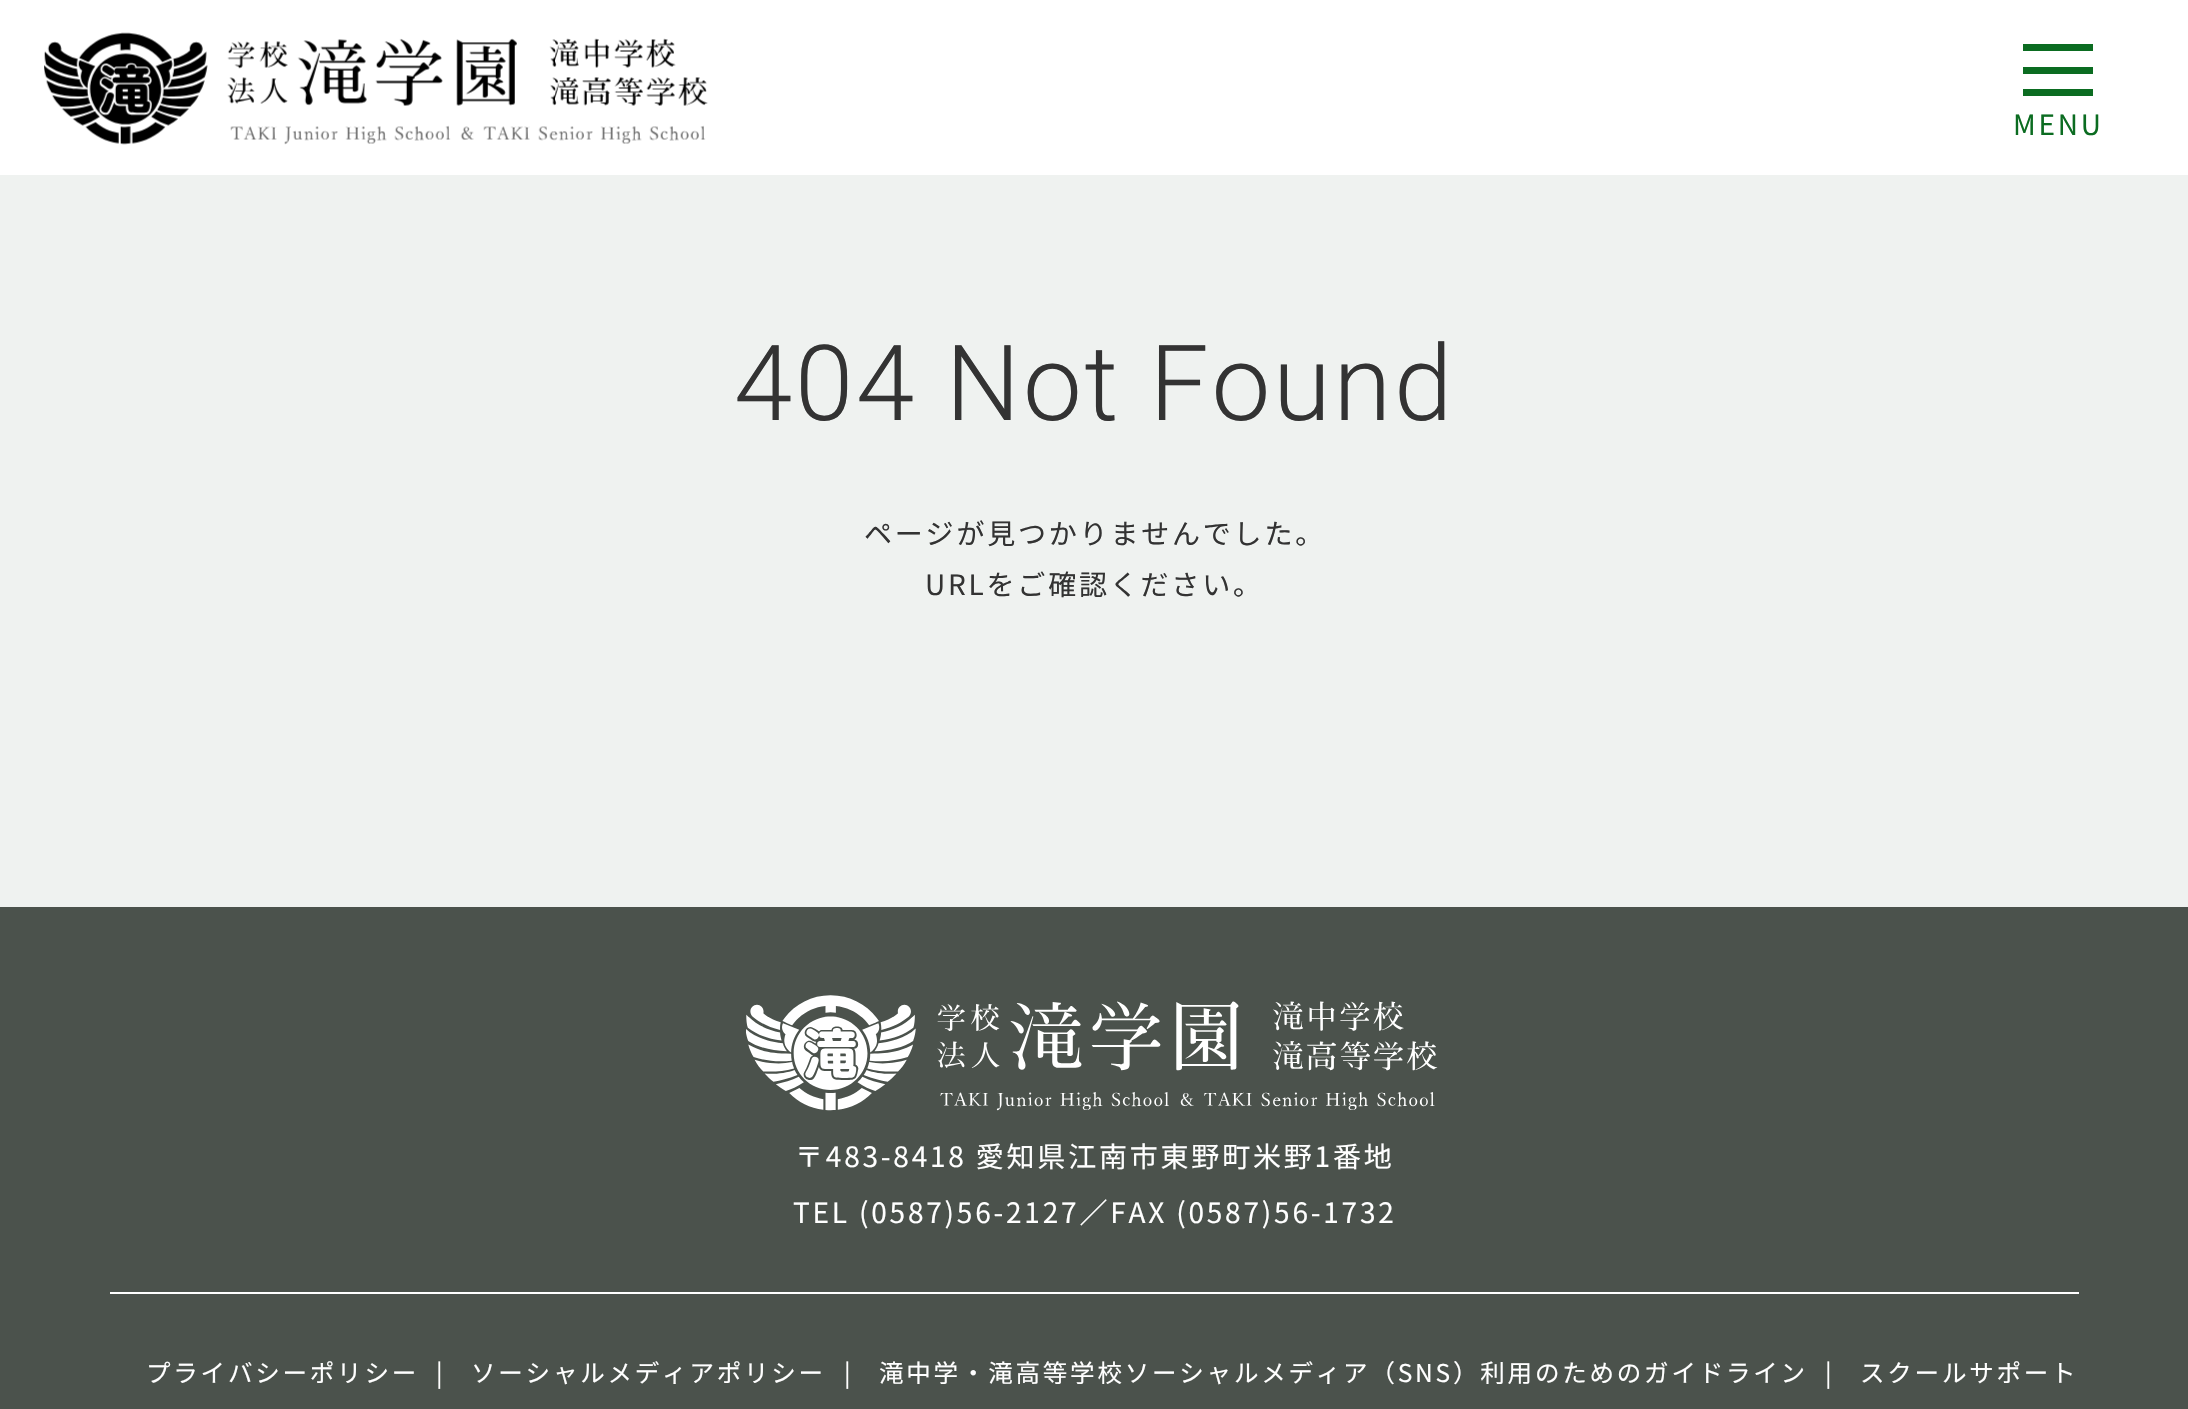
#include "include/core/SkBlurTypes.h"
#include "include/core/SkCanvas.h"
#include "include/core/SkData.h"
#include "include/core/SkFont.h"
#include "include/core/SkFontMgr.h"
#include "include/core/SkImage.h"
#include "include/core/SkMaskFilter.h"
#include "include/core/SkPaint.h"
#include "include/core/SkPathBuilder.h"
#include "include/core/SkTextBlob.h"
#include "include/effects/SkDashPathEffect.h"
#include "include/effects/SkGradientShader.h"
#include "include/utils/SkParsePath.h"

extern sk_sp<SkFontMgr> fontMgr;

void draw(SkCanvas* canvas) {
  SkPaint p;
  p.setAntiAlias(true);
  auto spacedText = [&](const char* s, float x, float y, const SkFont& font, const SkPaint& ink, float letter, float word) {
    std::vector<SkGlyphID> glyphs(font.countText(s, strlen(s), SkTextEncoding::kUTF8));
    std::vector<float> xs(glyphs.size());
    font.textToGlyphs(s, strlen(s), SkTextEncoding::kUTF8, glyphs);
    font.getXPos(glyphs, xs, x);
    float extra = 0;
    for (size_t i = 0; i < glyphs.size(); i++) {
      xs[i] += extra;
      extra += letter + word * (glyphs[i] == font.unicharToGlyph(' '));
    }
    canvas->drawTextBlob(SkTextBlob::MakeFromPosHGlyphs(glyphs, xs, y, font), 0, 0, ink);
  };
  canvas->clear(SkColorSetRGB(239, 242, 240));
  p.setColor(SK_ColorWHITE);
  canvas->drawRect(SkRect::MakeLTRB(0, 0, 2188, 175), p);
  canvas->drawImageRect(SkImages::DeferredFromEncodedData(SkData::MakeFromFileName("images/1.png")), SkRect::MakeLTRB(44, 32, 708, 145), SkSamplingOptions());
  p.setColor(SkColorSetRGB(11, 108, 33));
  canvas->drawRect(SkRect::MakeLTRB(2023, 44, 2093, 51), p);
  canvas->drawRect(SkRect::MakeLTRB(2023, 67, 2093, 74), p);
  canvas->drawRect(SkRect::MakeLTRB(2023, 89, 2093, 96), p);
  p.setColor(SkColorSetRGB(75, 82, 76));
  canvas->drawRect(SkRect::MakeLTRB(0, 907, 2188, 1409), p);
  p.setColor(SK_ColorWHITE);
  canvas->drawRect(SkRect::MakeLTRB(110, 1292, 2079, 1294), p);
  canvas->drawImageRect(SkImages::DeferredFromEncodedData(SkData::MakeFromFileName("images/2.png")), SkRect::MakeLTRB(746, 995, 1438, 1111), SkSamplingOptions());
  SkFont font1(fontMgr->matchFamilyStyle("Noto Sans JP", SkFontStyle::Normal()), 28);
  font1.setSubpixel(true);
  p.setColor(SkColorSetRGB(11, 108, 33));
  spacedText("MENU", 2013, 135, font1, p, 2.8f, 0);
  SkFont font2(fontMgr->matchFamilyStyle("Roboto", SkFontStyle(300, SkFontStyle::kNormal_Width, SkFontStyle::kUpright_Slant)), 105);
  font2.setSubpixel(true);
  p.setColor(SkColorSetRGB(51, 51, 51));
  spacedText("404 Not Found", 734, 420, font2, p, 2.8f, 0);
  spacedText("ページが見つかりませんでした。", 864, 544, font1, p, 2.8f, 0);
  spacedText("URLをご確認ください。", 925, 595, font1, p, 2.8f, 0);
  p.setColor(SK_ColorWHITE);
  spacedText("〒483-8418 愛知県江南市東野町米野1番地", 795, 1167, font1, p, 2.8f, 0);
  spacedText("TEL (0587)56-2127／FAX (0587)56-1732", 793, 1223, font1, p, 2.8f, 0);
  SkFont font3(fontMgr->matchFamilyStyle("Noto Sans JP", SkFontStyle::Normal()), 24.5f);
  font3.setSubpixel(true);
  spacedText("プライバシーポリシー", 146, 1382, font3, p, 2.8f, 0);
  spacedText("|", 436, 1382, font3, p, 2.8f, 0);
  spacedText("ソーシャルメディアポリシー", 471, 1382, font3, p, 2.8f, 0);
  spacedText("|", 844, 1382, font3, p, 2.8f, 0);
  spacedText("滝中学・滝高等学校ソーシャルメディア（SNS）利用のためのガイドライン", 879, 1382, font3, p, 2.8f, 0);
  spacedText("|", 1825, 1382, font3, p, 2.8f, 0);
  spacedText("スクールサポート", 1860, 1382, font3, p, 2.8f, 0);
}
